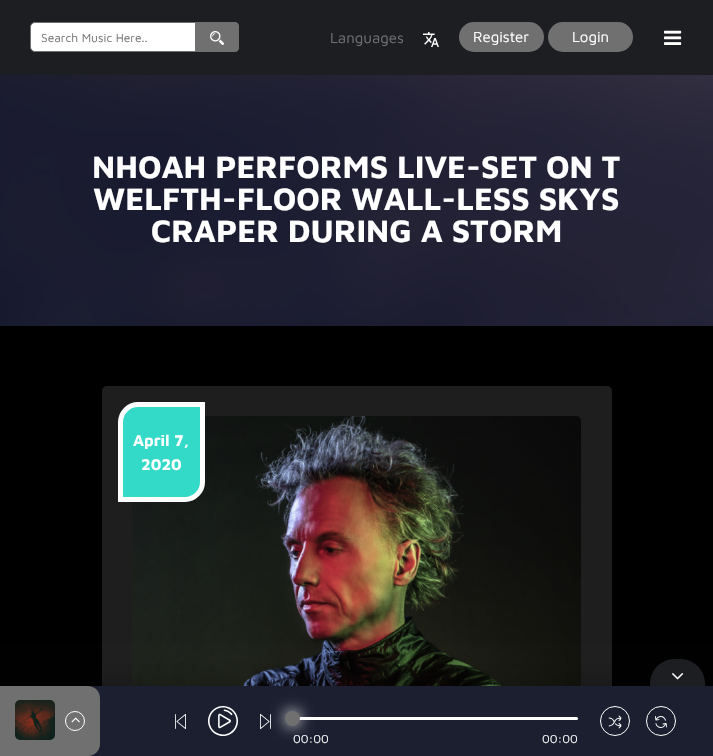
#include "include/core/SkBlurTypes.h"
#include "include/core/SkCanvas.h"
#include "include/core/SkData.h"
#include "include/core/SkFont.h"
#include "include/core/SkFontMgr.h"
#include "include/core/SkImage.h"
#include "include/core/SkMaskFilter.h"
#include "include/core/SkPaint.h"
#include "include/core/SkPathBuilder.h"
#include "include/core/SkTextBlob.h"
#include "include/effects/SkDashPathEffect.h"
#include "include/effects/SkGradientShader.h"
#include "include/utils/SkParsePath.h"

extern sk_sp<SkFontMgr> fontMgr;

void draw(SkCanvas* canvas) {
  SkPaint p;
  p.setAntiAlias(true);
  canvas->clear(SK_ColorBLACK);
  p.setColor(SkColorSetRGB(29, 30, 34));
  canvas->drawRect(SkRect::MakeLTRB(0, 0, 713, 75), p);
  p.setColor(SK_ColorWHITE);
  canvas->drawRoundRect(SkRect::MakeLTRB(30.5f, 22.5f, 238.5f, 51.5f), 4.5f, 4.5f, p);
  p.setStyle(SkPaint::kStroke_Style);
  p.setStrokeWidth(1);
  p.setColor(SkColorSetRGB(112, 112, 112));
  canvas->drawRoundRect(SkRect::MakeLTRB(30.5f, 22.5f, 238.5f, 51.5f), 4.5f, 4.5f, p);
  p.setStyle(SkPaint::kFill_Style);
  canvas->drawPath(SkPathBuilder().moveTo(195, 22).lineTo(235, 22).cubicTo(237, 22, 239, 24, 239, 26).lineTo(239, 48).cubicTo(239, 50, 237, 52, 235, 52).lineTo(195, 52).close().detach(), p);
  canvas->drawImageRect(SkImages::DeferredFromEncodedData(SkData::MakeFromFileName("images/1.png")), SkRect::MakeLTRB(210, 31, 224, 45), SkSamplingOptions());
  canvas->drawImageRect(SkImages::DeferredFromEncodedData(SkData::MakeFromFileName("images/2.png")), SkRect::MakeLTRB(423, 32, 439, 47), SkSamplingOptions());
  canvas->drawRoundRect(SkRect::MakeLTRB(459, 22, 544, 52), 15, 15, p);
  canvas->drawRoundRect(SkRect::MakeLTRB(548, 22, 633, 52), 15, 15, p);
  canvas->drawImageRect(SkImages::DeferredFromEncodedData(SkData::MakeFromFileName("images/3.png")), SkRect::MakeLTRB(664, 30, 682, 45), SkSamplingOptions());
  canvas->drawImageRect(SkImages::DeferredFromEncodedData(SkData::MakeFromFileName("images/4.png")), SkRect::MakeLTRB(0, 75, 713, 326), SkSamplingOptions());
  p.setColor(SkColorSetRGB(30, 30, 30));
  canvas->drawRoundRect(SkRect::MakeLTRB(102, 386, 612, 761), 5, 5, p);
  canvas->drawImageRect(SkImages::DeferredFromEncodedData(SkData::MakeFromFileName("images/5.png")), SkRect::MakeLTRB(132, 416, 581, 686), SkSamplingOptions());
  p.setColor(SkColorSetRGB(52, 218, 200));
  canvas->drawPath(SkPathBuilder().moveTo(138, 404.5f).lineTo(202.5f, 404.5f).lineTo(202.5f, 482).cubicTo(202.5f, 491.5f, 194.5f, 499.5f, 185, 499.5f).lineTo(120.5f, 499.5f).lineTo(120.5f, 422).cubicTo(120.5f, 412.5f, 128.5f, 404.5f, 138, 404.5f).close().detach(), p);
  p.setStyle(SkPaint::kStroke_Style);
  p.setStrokeWidth(5);
  p.setColor(SK_ColorWHITE);
  canvas->drawPath(SkPathBuilder().moveTo(138, 404.5f).lineTo(202.5f, 404.5f).lineTo(202.5f, 482).cubicTo(202.5f, 491.5f, 194.5f, 499.5f, 185, 499.5f).lineTo(120.5f, 499.5f).lineTo(120.5f, 422).cubicTo(120.5f, 412.5f, 128.5f, 404.5f, 138, 404.5f).close().detach(), p);
  p.setStyle(SkPaint::kFill_Style);
  p.setColor(SkColorSetARGB(51, 4, 4, 4));
  p.setMaskFilter(SkMaskFilter::MakeBlur(kNormal_SkBlurStyle, 12));
  canvas->drawRect(SkRect::MakeLTRB(-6, 680, 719, 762), p);
  p.setMaskFilter(nullptr);
  p.setColor(SkColorSetRGB(29, 30, 34));
  canvas->drawPath(SkPathBuilder().moveTo(675, 659).lineTo(680, 659).cubicTo(694, 659, 705, 670, 705, 684).lineTo(705, 686).lineTo(650, 686).lineTo(650, 684).cubicTo(650, 670, 661, 659, 675, 659).close().detach(), p);
  canvas->drawImageRect(SkImages::DeferredFromEncodedData(SkData::MakeFromFileName("images/6.png")), SkRect::MakeLTRB(672, 673, 684, 680), SkSamplingOptions());
  p.setColor(SkColorSetRGB(28, 31, 48));
  canvas->drawRect(SkRect::MakeLTRB(88, 686, 713, 756), p);
  p.setColor(SkColorSetRGB(112, 112, 112));
  canvas->drawPath(SkPathBuilder().moveTo(0, 686).lineTo(88, 686).cubicTo(94.5f, 686, 100, 691.5f, 100, 698).lineTo(100, 744).cubicTo(100, 750.5f, 94.5f, 756, 88, 756).lineTo(0, 756).close().detach(), p);
  canvas->drawImageRect(SkImages::DeferredFromEncodedData(SkData::MakeFromFileName("images/7.png")), SkRect::MakeLTRB(15, 700, 55, 740), SkSamplingOptions());
  p.setStyle(SkPaint::kStroke_Style);
  p.setStrokeWidth(1);
  p.setColor(SK_ColorWHITE);
  canvas->drawCircle(75, 721, 9.5f, p);
  canvas->drawImageRect(SkImages::DeferredFromEncodedData(SkData::MakeFromFileName("images/8.png")), SkRect::MakeLTRB(71, 717, 80, 723), SkSamplingOptions());
  canvas->drawImageRect(SkImages::DeferredFromEncodedData(SkData::MakeFromFileName("images/9.png")), SkRect::MakeLTRB(175, 714, 186, 729), SkSamplingOptions());
  canvas->drawImageRect(SkImages::DeferredFromEncodedData(SkData::MakeFromFileName("images/10.png")), SkRect::MakeLTRB(208, 706, 238, 736), SkSamplingOptions());
  canvas->drawImageRect(SkImages::DeferredFromEncodedData(SkData::MakeFromFileName("images/11.png")), SkRect::MakeLTRB(260, 714, 271, 729), SkSamplingOptions());
  canvas->drawImageRect(SkImages::DeferredFromEncodedData(SkData::MakeFromFileName("images/12.png")), SkRect::MakeLTRB(608, 715, 622, 729), SkSamplingOptions());
  canvas->drawCircle(615, 721, 14.5f, p);
  canvas->drawImageRect(SkImages::DeferredFromEncodedData(SkData::MakeFromFileName("images/13.png")), SkRect::MakeLTRB(655, 716, 667, 728), SkSamplingOptions());
  canvas->drawCircle(661, 721, 14.5f, p);
  p.setStyle(SkPaint::kFill_Style);
  canvas->drawRoundRect(SkRect::MakeLTRB(293, 717, 578, 720), 1.5f, 1.5f, p);
  p.setMaskFilter(SkMaskFilter::MakeBlur(kNormal_SkBlurStyle, 7.5f));
  canvas->drawRoundRect(SkRect::MakeLTRB(285, 711, 300, 726), 7.5f, 7.5f, p);
  p.setMaskFilter(nullptr);
  p.setColor(SkColorSetRGB(112, 112, 112));
  canvas->drawCircle(292.5f, 718.5f, 7.5f, p);
  SkFont font1(fontMgr->matchFamilyStyle("Maven Pro", SkFontStyle::Normal()), 12);
  font1.setSubpixel(true);
  p.setColor(SkColorSetRGB(119, 119, 119));
  canvas->drawString("Search Music Here..", 41, 42, font1, p);
  SkFont font2(fontMgr->matchFamilyStyle("Maven Pro", SkFontStyle::Normal()), 15);
  font2.setSubpixel(true);
  p.setColor(SkColorSetRGB(112, 112, 112));
  canvas->drawString("Languages", 330, 43, font2, p);
  p.setColor(SK_ColorWHITE);
  canvas->drawString("Register", 473, 42, font2, p);
  canvas->drawString("Login", 572, 42, font2, p);
  SkFont font3(fontMgr->matchFamilyStyle("Maven Pro", SkFontStyle::Bold()), 32);
  font3.setSubpixel(true);
  canvas->drawString("NHOAH PERFORMS LIVE-SET ON T", 92, 178, font3, p);
  canvas->drawString("WELFTH-FLOOR WALL-LESS SKYS", 93, 210, font3, p);
  canvas->drawString("CRAPER DURING A STORM", 151, 242, font3, p);
  SkFont font4(fontMgr->matchFamilyStyle("Maven Pro", SkFontStyle::Bold()), 16);
  font4.setSubpixel(true);
  canvas->drawString("April 7,", 133, 446, font4, p);
  canvas->drawString("2020", 141, 470, font4, p);
  canvas->drawString("00:00", 293, 743, font1, p);
  canvas->drawString("00:00", 542, 743, font1, p);
}
